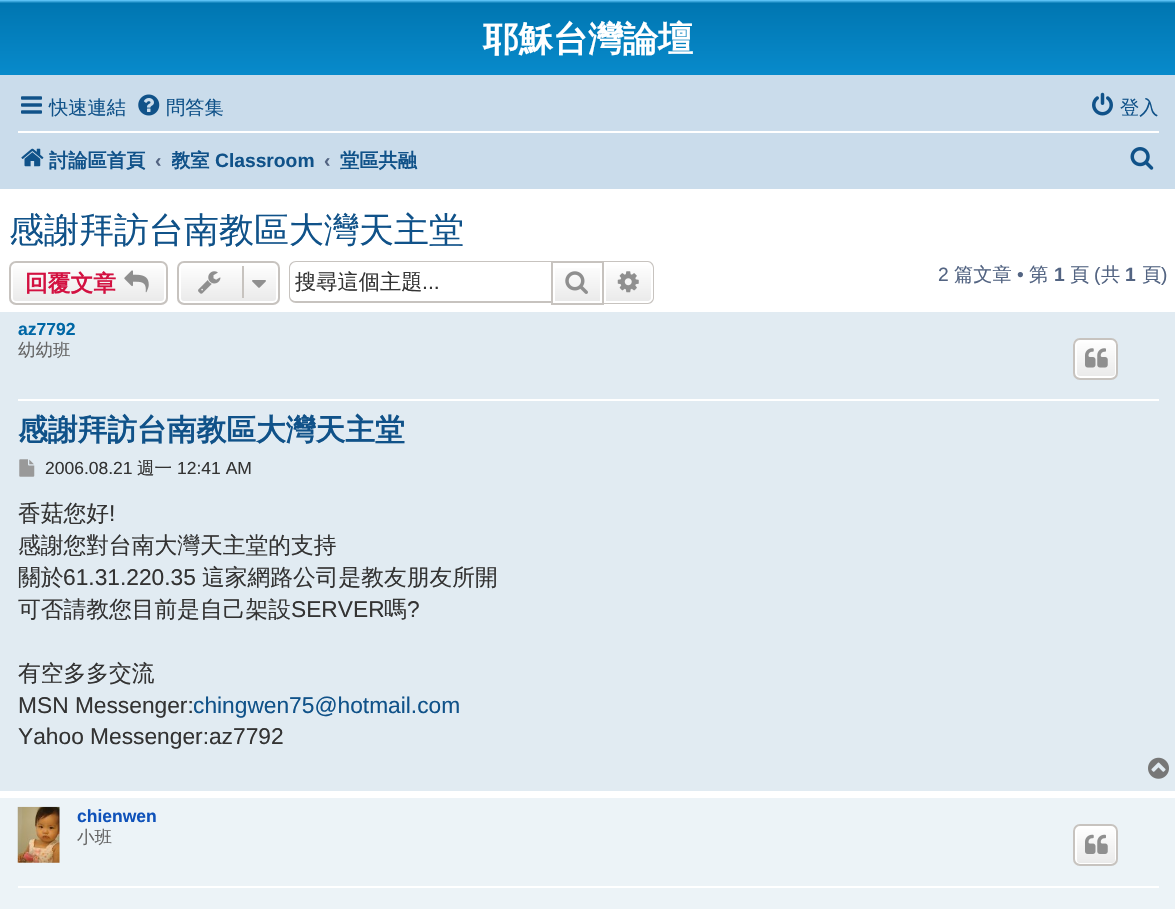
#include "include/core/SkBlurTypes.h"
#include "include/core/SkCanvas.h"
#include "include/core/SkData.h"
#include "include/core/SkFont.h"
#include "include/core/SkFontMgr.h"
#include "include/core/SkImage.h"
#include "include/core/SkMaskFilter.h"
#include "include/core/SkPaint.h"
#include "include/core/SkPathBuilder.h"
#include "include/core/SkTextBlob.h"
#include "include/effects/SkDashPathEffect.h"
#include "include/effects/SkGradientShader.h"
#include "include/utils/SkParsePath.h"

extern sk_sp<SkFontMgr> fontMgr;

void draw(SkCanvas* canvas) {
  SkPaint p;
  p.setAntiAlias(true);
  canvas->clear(SK_ColorWHITE);
  {
    const SkColor colors[] = {SkColorSetRGB(106, 206, 255), SkColorSetRGB(0, 118, 177), SkColorSetRGB(18, 163, 235)};
    const float stops[] = {0, 0.02f, 1};
    const SkPoint ends[] = {{588, 0}, {588, 161}};
    p.setShader(SkGradientShader::MakeLinear(ends, colors, stops, 3, SkTileMode::kClamp));
    p.setAlpha(255);
  }
  canvas->drawRect(SkRect::MakeLTRB(0, 0, 1175, 75), p);
  p.setShader(nullptr);
  p.setColor(SkColorSetRGB(202, 220, 235));
  canvas->drawRect(SkRect::MakeLTRB(0, 75, 1175, 189), p);
  canvas->drawImageRect(SkImages::DeferredFromEncodedData(SkData::MakeFromFileName("images/1.png")), SkRect::MakeLTRB(21, 96, 42, 114), SkSamplingOptions());
  canvas->drawImageRect(SkImages::DeferredFromEncodedData(SkData::MakeFromFileName("images/2.png")), SkRect::MakeLTRB(138, 94, 160, 116), SkSamplingOptions());
  canvas->drawImageRect(SkImages::DeferredFromEncodedData(SkData::MakeFromFileName("images/3.png")), SkRect::MakeLTRB(1092, 92, 1113, 116), SkSamplingOptions());
  p.setColor(SK_ColorWHITE);
  canvas->drawRect(SkRect::MakeLTRB(18, 131, 1159, 133), p);
  canvas->drawImageRect(SkImages::DeferredFromEncodedData(SkData::MakeFromFileName("images/4.png")), SkRect::MakeLTRB(21, 148, 44, 167), SkSamplingOptions());
  canvas->drawImageRect(SkImages::DeferredFromEncodedData(SkData::MakeFromFileName("images/5.png")), SkRect::MakeLTRB(1130, 147, 1154, 170), SkSamplingOptions());
  canvas->save();
  canvas->clipPath(SkPathBuilder().moveTo(16, 261).lineTo(161, 261).cubicTo(165, 261, 168, 264, 168, 268).lineTo(168, 298).cubicTo(168, 302, 165, 305, 161, 305).lineTo(16, 305).cubicTo(12, 305, 9, 302, 9, 298).lineTo(9, 268).cubicTo(9, 264, 12, 261, 16, 261).close().detach(), true);
  {
    const SkColor colors[] = {SK_ColorWHITE, SkColorSetRGB(233, 233, 233)};
    const float stops[] = {0, 1};
    const SkPoint ends[] = {{88, 263}, {88, 303}};
    p.setShader(SkGradientShader::MakeLinear(ends, colors, stops, 2, SkTileMode::kClamp));
    p.setAlpha(255);
  }
  canvas->drawRect(SkRect::MakeLTRB(9, 263, 168, 303), p);
  canvas->restore();
  p.setStyle(SkPaint::kStroke_Style);
  p.setStrokeWidth(2);
  p.setShader(nullptr);
  p.setColor(SK_ColorWHITE);
  canvas->drawRoundRect(SkRect::MakeLTRB(12, 264, 165, 302), 4, 4, p);
  p.setColor(SkColorSetRGB(199, 195, 191));
  canvas->drawRoundRect(SkRect::MakeLTRB(10, 262, 167, 304), 6, 6, p);
  canvas->drawImageRect(SkImages::DeferredFromEncodedData(SkData::MakeFromFileName("images/6.png")), SkRect::MakeLTRB(124, 270, 149, 293), SkSamplingOptions());
  canvas->save();
  canvas->clipPath(SkPathBuilder().moveTo(184, 261).lineTo(273, 261).cubicTo(277, 261, 280, 264, 280, 268).lineTo(280, 298).cubicTo(280, 302, 277, 305, 273, 305).lineTo(184, 305).cubicTo(180, 305, 177, 302, 177, 298).lineTo(177, 268).cubicTo(177, 264, 180, 261, 184, 261).close().detach(), true);
  p.setStyle(SkPaint::kFill_Style);
  {
    const SkColor colors[] = {SK_ColorWHITE, SkColorSetRGB(233, 233, 233)};
    const float stops[] = {0, 1};
    const SkPoint ends[] = {{228, 263}, {228, 303}};
    p.setShader(SkGradientShader::MakeLinear(ends, colors, stops, 2, SkTileMode::kClamp));
    p.setAlpha(255);
  }
  canvas->drawRect(SkRect::MakeLTRB(177, 263, 280, 303), p);
  canvas->restore();
  p.setStyle(SkPaint::kStroke_Style);
  p.setShader(nullptr);
  p.setColor(SK_ColorWHITE);
  canvas->drawRoundRect(SkRect::MakeLTRB(180, 264, 277, 302), 4, 4, p);
  p.setColor(SkColorSetRGB(199, 195, 191));
  canvas->drawRoundRect(SkRect::MakeLTRB(178, 262, 279, 304), 6, 6, p);
  canvas->drawImageRect(SkImages::DeferredFromEncodedData(SkData::MakeFromFileName("images/7.png")), SkRect::MakeLTRB(198, 271, 221, 294), SkSamplingOptions());
  p.setStyle(SkPaint::kFill_Style);
  canvas->drawRect(SkRect::MakeLTRB(242, 266, 244, 298), p);
  canvas->drawImageRect(SkImages::DeferredFromEncodedData(SkData::MakeFromFileName("images/8.png")), SkRect::MakeLTRB(252, 280, 266, 288), SkSamplingOptions());
  canvas->drawPath(SkPathBuilder(SkPathFillType::kEvenOdd).moveTo(296, 261).lineTo(551, 261).lineTo(551, 303).lineTo(296, 303).cubicTo(292, 303, 289, 300, 289, 296).lineTo(289, 268).cubicTo(289, 264, 292, 261, 296, 261).close().moveTo(296, 262).lineTo(551, 262).lineTo(551, 301).lineTo(296, 301).cubicTo(293, 301, 290, 299, 290, 296).lineTo(290, 268).cubicTo(290, 265, 293, 262, 296, 262).close().detach(), p);
  {
    const SkColor colors[] = {SK_ColorWHITE, SkColorSetRGB(233, 233, 233)};
    const float stops[] = {0, 1};
    const SkPoint ends[] = {{578, 263}, {578, 303}};
    p.setShader(SkGradientShader::MakeLinear(ends, colors, stops, 2, SkTileMode::kClamp));
    p.setAlpha(255);
  }
  canvas->drawRect(SkRect::MakeLTRB(555, 268, 600, 301), p);
  p.setStyle(SkPaint::kStroke_Style);
  p.setShader(nullptr);
  p.setColor(SkColorSetRGB(199, 195, 191));
  canvas->drawRect(SkRect::MakeLTRB(552, 262, 603, 304), p);
  canvas->drawImageRect(SkImages::DeferredFromEncodedData(SkData::MakeFromFileName("images/9.png")), SkRect::MakeLTRB(565, 271, 588, 294), SkSamplingOptions());
  p.setStyle(SkPaint::kFill_Style);
  {
    const SkColor colors[] = {SK_ColorWHITE, SkColorSetRGB(233, 233, 233)};
    const float stops[] = {0, 1};
    const SkPoint ends[] = {{628, 263}, {628, 303}};
    p.setShader(SkGradientShader::MakeLinear(ends, colors, stops, 2, SkTileMode::kClamp));
    p.setAlpha(255);
  }
  canvas->drawPath(SkPathBuilder().moveTo(605, 264).lineTo(648, 264).cubicTo(650, 264, 652, 266, 652, 268).lineTo(652, 298).cubicTo(652, 300, 650, 302, 648, 302).lineTo(605, 302).close().detach(), p);
  p.setStyle(SkPaint::kStroke_Style);
  p.setShader(nullptr);
  p.setColor(SK_ColorWHITE);
  canvas->drawPath(SkPathBuilder().moveTo(605, 264).lineTo(648, 264).cubicTo(650, 264, 652, 266, 652, 268).lineTo(652, 298).cubicTo(652, 300, 650, 302, 648, 302).lineTo(605, 302).close().detach(), p);
  p.setStyle(SkPaint::kFill_Style);
  p.setColor(SkColorSetRGB(199, 195, 191));
  canvas->drawPath(SkPathBuilder(SkPathFillType::kEvenOdd).moveTo(604, 261).lineTo(648, 261).cubicTo(651, 261, 654, 264, 654, 268).lineTo(654, 298).cubicTo(654, 301, 651, 304, 648, 304).lineTo(604, 304).close().moveTo(604, 262).lineTo(648, 262).cubicTo(650, 262, 653, 265, 653, 268).lineTo(653, 298).cubicTo(653, 300, 650, 303, 648, 303).lineTo(604, 303).close().detach(), p);
  canvas->drawImageRect(SkImages::DeferredFromEncodedData(SkData::MakeFromFileName("images/10.png")), SkRect::MakeLTRB(617, 271, 639, 293), SkSamplingOptions());
  p.setColor(SkColorSetRGB(225, 235, 242));
  canvas->drawRect(SkRect::MakeLTRB(0, 312, 1175, 791), p);
  p.setColor(SK_ColorWHITE);
  canvas->drawRect(SkRect::MakeLTRB(18, 399, 1159, 401), p);
  canvas->save();
  canvas->clipPath(SkPathBuilder().moveTo(1080, 338).lineTo(1111, 338).cubicTo(1115, 338, 1118, 341, 1118, 345).lineTo(1118, 373).cubicTo(1118, 377, 1115, 380, 1111, 380).lineTo(1080, 380).cubicTo(1076, 380, 1073, 377, 1073, 373).lineTo(1073, 345).cubicTo(1073, 341, 1076, 338, 1080, 338).close().detach(), true);
  {
    const SkColor colors[] = {SK_ColorWHITE, SkColorSetRGB(233, 233, 233)};
    const float stops[] = {0, 1};
    const SkPoint ends[] = {{1096, 340}, {1096, 378}};
    p.setShader(SkGradientShader::MakeLinear(ends, colors, stops, 2, SkTileMode::kClamp));
    p.setAlpha(255);
  }
  canvas->drawRect(SkRect::MakeLTRB(1073, 340, 1118, 378), p);
  canvas->restore();
  p.setStyle(SkPaint::kStroke_Style);
  p.setShader(nullptr);
  p.setColor(SK_ColorWHITE);
  canvas->drawRoundRect(SkRect::MakeLTRB(1076, 341, 1116, 377), 4, 4, p);
  p.setColor(SkColorSetRGB(199, 195, 191));
  canvas->drawRoundRect(SkRect::MakeLTRB(1074, 339, 1117, 379), 6, 6, p);
  canvas->drawImageRect(SkImages::DeferredFromEncodedData(SkData::MakeFromFileName("images/11.png")), SkRect::MakeLTRB(1085, 348, 1108, 368), SkSamplingOptions());
  canvas->drawImageRect(SkImages::DeferredFromEncodedData(SkData::MakeFromFileName("images/12.png")), SkRect::MakeLTRB(19, 459, 35, 477), SkSamplingOptions());
  canvas->drawImageRect(SkImages::DeferredFromEncodedData(SkData::MakeFromFileName("images/13.png")), SkRect::MakeLTRB(1148, 757, 1169, 779), SkSamplingOptions());
  p.setStyle(SkPaint::kFill_Style);
  p.setColor(SkColorSetRGB(236, 243, 247));
  canvas->drawRect(SkRect::MakeLTRB(0, 798, 1175, 909), p);
  p.setColor(SK_ColorWHITE);
  canvas->drawRect(SkRect::MakeLTRB(18, 886, 1159, 888), p);
  canvas->drawImageRect(SkImages::DeferredFromEncodedData(SkData::MakeFromFileName("images/14.png")), SkRect::MakeLTRB(17, 806, 60, 863), SkSamplingOptions());
  canvas->save();
  canvas->clipPath(SkPathBuilder().moveTo(1080, 824).lineTo(1111, 824).cubicTo(1115, 824, 1118, 827, 1118, 831).lineTo(1118, 859).cubicTo(1118, 863, 1115, 866, 1111, 866).lineTo(1080, 866).cubicTo(1076, 866, 1073, 863, 1073, 859).lineTo(1073, 831).cubicTo(1073, 827, 1076, 824, 1080, 824).close().detach(), true);
  {
    const SkColor colors[] = {SK_ColorWHITE, SkColorSetRGB(233, 233, 233)};
    const float stops[] = {0, 1};
    const SkPoint ends[] = {{1096, 826}, {1096, 865}};
    p.setShader(SkGradientShader::MakeLinear(ends, colors, stops, 2, SkTileMode::kClamp));
    p.setAlpha(255);
  }
  canvas->drawRect(SkRect::MakeLTRB(1073, 826, 1118, 865), p);
  canvas->restore();
  p.setStyle(SkPaint::kStroke_Style);
  p.setShader(nullptr);
  p.setColor(SK_ColorWHITE);
  canvas->drawRoundRect(SkRect::MakeLTRB(1076, 827, 1116, 864), 4, 4, p);
  p.setColor(SkColorSetRGB(199, 195, 191));
  canvas->drawRoundRect(SkRect::MakeLTRB(1074, 825, 1117, 865), 6, 6, p);
  canvas->drawImageRect(SkImages::DeferredFromEncodedData(SkData::MakeFromFileName("images/15.png")), SkRect::MakeLTRB(1085, 834, 1108, 854), SkSamplingOptions());
  SkFont font1(fontMgr->matchFamilyStyle("WenQuanYi Zen Hei", SkFontStyle::Bold()), 35);
  font1.setSubpixel(true);
  p.setStyle(SkPaint::kFill_Style);
  p.setColor(SK_ColorWHITE);
  canvas->drawString("耶穌台灣論壇", 483, 51, font1, p);
  SkFont font2(fontMgr->matchFamilyStyle("WenQuanYi Zen Hei", SkFontStyle(500, SkFontStyle::kNormal_Width, SkFontStyle::kUpright_Slant)), 19.25f);
  font2.setSubpixel(true);
  p.setColor(SkColorSetRGB(16, 82, 137));
  canvas->drawString("快速連結", 49, 114, font2, p);
  canvas->drawString("問答集", 166, 114, font2, p);
  canvas->drawString("登入", 1120, 114, font2, p);
  SkFont font3(fontMgr->matchFamilyStyle("WenQuanYi Zen Hei", SkFontStyle::Bold()), 19.25f);
  font3.setSubpixel(true);
  canvas->drawString("討論區首頁", 49, 167, font3, p);
  SkFont font4(fontMgr->matchFamilyStyle("Liberation Sans", SkFontStyle::Bold()), 19.25f);
  font4.setSubpixel(true);
  p.setColor(SkColorSetRGB(83, 100, 130));
  canvas->drawString("‹", 155, 167, font4, p);
  canvas->save();
  canvas->clipRect(SkRect::MakeLTRB(172, 138, 315, 180));
  p.setColor(SkColorSetRGB(16, 82, 137));
  canvas->drawString("教室", 171, 167, font3, p);
  canvas->restore();
  canvas->drawString("Classroom", 215, 167, font4, p);
  p.setColor(SkColorSetRGB(83, 100, 130));
  canvas->drawString("‹", 324, 167, font4, p);
  p.setColor(SkColorSetRGB(16, 82, 137));
  canvas->drawString("堂區共融", 340, 167, font3, p);
  SkFont font5(fontMgr->matchFamilyStyle("WenQuanYi Zen Hei", SkFontStyle(500, SkFontStyle::kNormal_Width, SkFontStyle::kUpright_Slant)), 35);
  font5.setSubpixel(true);
  canvas->drawString("感謝拜訪台南教區大灣天主堂", 9, 242, font5, p);
  SkFont font6(fontMgr->matchFamilyStyle("WenQuanYi Zen Hei", SkFontStyle::Bold()), 22.75f);
  font6.setSubpixel(true);
  p.setColor(SkColorSetRGB(211, 17, 65));
  canvas->drawString("回覆文章", 25, 291, font6, p);
  SkFont font7(fontMgr->matchFamilyStyle("WenQuanYi Zen Hei", SkFontStyle(500, SkFontStyle::kNormal_Width, SkFontStyle::kUpright_Slant)), 21.25f);
  font7.setSubpixel(true);
  p.setColor(SkColorSetRGB(51, 51, 51));
  canvas->drawString("搜尋這個主題", 295, 289, font7, p);
  SkFont font8(fontMgr->matchFamilyStyle("Liberation Sans", SkFontStyle::Normal()), 21.25f);
  font8.setSubpixel(true);
  canvas->drawString("...", 422, 289, font8, p);
  SkFont font9(fontMgr->matchFamilyStyle("Liberation Sans", SkFontStyle::Normal()), 19.25f);
  font9.setSubpixel(true);
  p.setColor(SkColorSetRGB(83, 100, 130));
  canvas->drawString("2", 938, 281, font9, p);
  canvas->drawString("篇文章", 954, 281, font2, p);
  canvas->drawString("•", 1017, 281, font9, p);
  canvas->drawString("第", 1029, 281, font2, p);
  canvas->drawString("1", 1054, 281, font4, p);
  canvas->drawString("頁", 1070, 281, font2, p);
  canvas->drawString("(", 1094, 281, font9, p);
  canvas->drawString("共", 1101, 281, font2, p);
  canvas->drawString("1", 1125, 281, font4, p);
  canvas->drawString("頁", 1142, 281, font2, p);
  canvas->drawString(")", 1161, 281, font9, p);
  SkFont font10(fontMgr->matchFamilyStyle("Liberation Sans", SkFontStyle::Bold()), 17.5f);
  font10.setSubpixel(true);
  p.setColor(SkColorSetRGB(0, 103, 165));
  canvas->drawString("az7792", 18, 335, font10, p);
  SkFont font11(fontMgr->matchFamilyStyle("WenQuanYi Zen Hei", SkFontStyle(500, SkFontStyle::kNormal_Width, SkFontStyle::kUpright_Slant)), 17.5f);
  font11.setSubpixel(true);
  p.setColor(SkColorSetRGB(102, 102, 102));
  canvas->drawString("幼幼班", 18, 356, font11, p);
  SkFont font12(fontMgr->matchFamilyStyle("WenQuanYi Zen Hei", SkFontStyle::Bold()), 29.75f);
  font12.setSubpixel(true);
  p.setColor(SkColorSetRGB(16, 82, 137));
  canvas->drawString("感謝拜訪台南教區大灣天主堂", 18, 440, font12, p);
  SkFont font13(fontMgr->matchFamilyStyle("Liberation Sans", SkFontStyle::Normal()), 17.5f);
  font13.setSubpixel(true);
  p.setColor(SkColorSetRGB(51, 51, 51));
  canvas->drawString("2006.08.21", 45, 474, font13, p);
  canvas->drawString("週一", 137, 474, font11, p);
  canvas->drawString("12:41 AM", 177, 474, font13, p);
  SkFont font14(fontMgr->matchFamilyStyle("WenQuanYi Zen Hei", SkFontStyle(500, SkFontStyle::kNormal_Width, SkFontStyle::kUpright_Slant)), 22.75f);
  font14.setSubpixel(true);
  canvas->drawString("香菇您好", 18, 521, font14, p);
  SkFont font15(fontMgr->matchFamilyStyle("Liberation Sans", SkFontStyle::Normal()), 22.75f);
  font15.setSubpixel(true);
  canvas->drawString("!", 109, 521, font15, p);
  canvas->drawString("感謝您對台南大灣天主堂的支持", 18, 553, font14, p);
  canvas->drawString("關於", 18, 585, font14, p);
  canvas->drawString("61.31.220.35", 63, 585, font15, p);
  canvas->drawString("這家網路公司是教友朋友所開", 202, 585, font14, p);
  canvas->drawString("可否請教您目前是自己架設", 18, 617, font14, p);
  canvas->drawString("SERVER", 291, 617, font15, p);
  canvas->drawString("嗎", 384, 617, font14, p);
  canvas->drawString("?", 407, 617, font15, p);
  canvas->drawString("有空多多交流", 18, 681, font14, p);
  canvas->drawString("MSN Messenger:", 18, 713, font15, p);
  p.setColor(SkColorSetRGB(16, 82, 137));
  canvas->drawString("chingwen75@hotmail.com", 193, 713, font15, p);
  p.setColor(SkColorSetRGB(51, 51, 51));
  canvas->drawString("Yahoo Messenger:az7792", 18, 744, font15, p);
  p.setColor(SkColorSetRGB(15, 82, 186));
  canvas->drawString("chienwen", 77, 822, font10, p);
  p.setColor(SkColorSetRGB(102, 102, 102));
  canvas->drawString("小班", 77, 843, font11, p);
}
